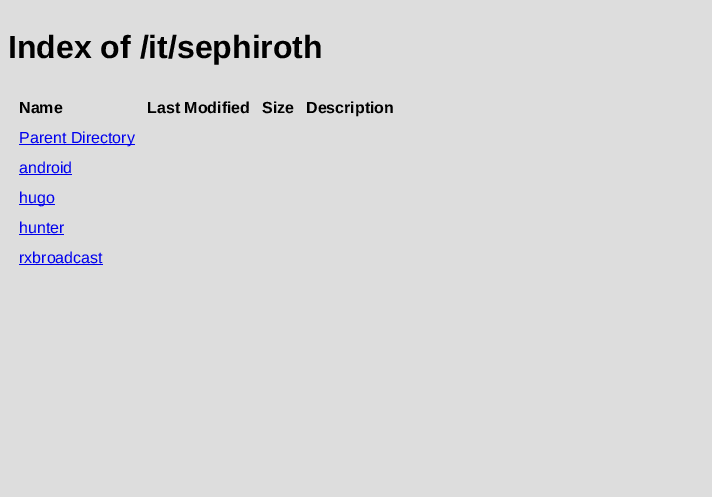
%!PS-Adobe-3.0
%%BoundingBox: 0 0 712 497
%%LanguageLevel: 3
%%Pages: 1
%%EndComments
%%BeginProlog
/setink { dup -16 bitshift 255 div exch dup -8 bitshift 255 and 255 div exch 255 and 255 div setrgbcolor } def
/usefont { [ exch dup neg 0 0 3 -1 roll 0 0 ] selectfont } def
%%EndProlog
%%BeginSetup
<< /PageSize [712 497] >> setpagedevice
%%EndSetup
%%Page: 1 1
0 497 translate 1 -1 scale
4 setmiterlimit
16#DDDDDD setink
0 0 712 497 rectfill
/LiberationSans-Bold 32 usefont
16#000000 setink
8 58 moveto (Index of /it/sephiroth) show
/LiberationSans-Bold 16 usefont
[
    [(Name) 19 113]
    [(Last Modified) 147 113]
    [(Size) 262 113]
    [(Description) 306 113]
] { aload pop moveto show } forall
16#0000EE setink
19 144 116 1 rectfill
/LiberationSans-Regular 16 usefont
19 143 moveto (Parent Directory) show
19 173 moveto (android) show
19 174 53 1 rectfill
19 204 36 1 rectfill
19 203 moveto (hugo) show
19 233 moveto (hunter) show
19 234 45 1 rectfill
19 263 moveto (rxbroadcast) show
19 264 84 1 rectfill
showpage
%%EOF
